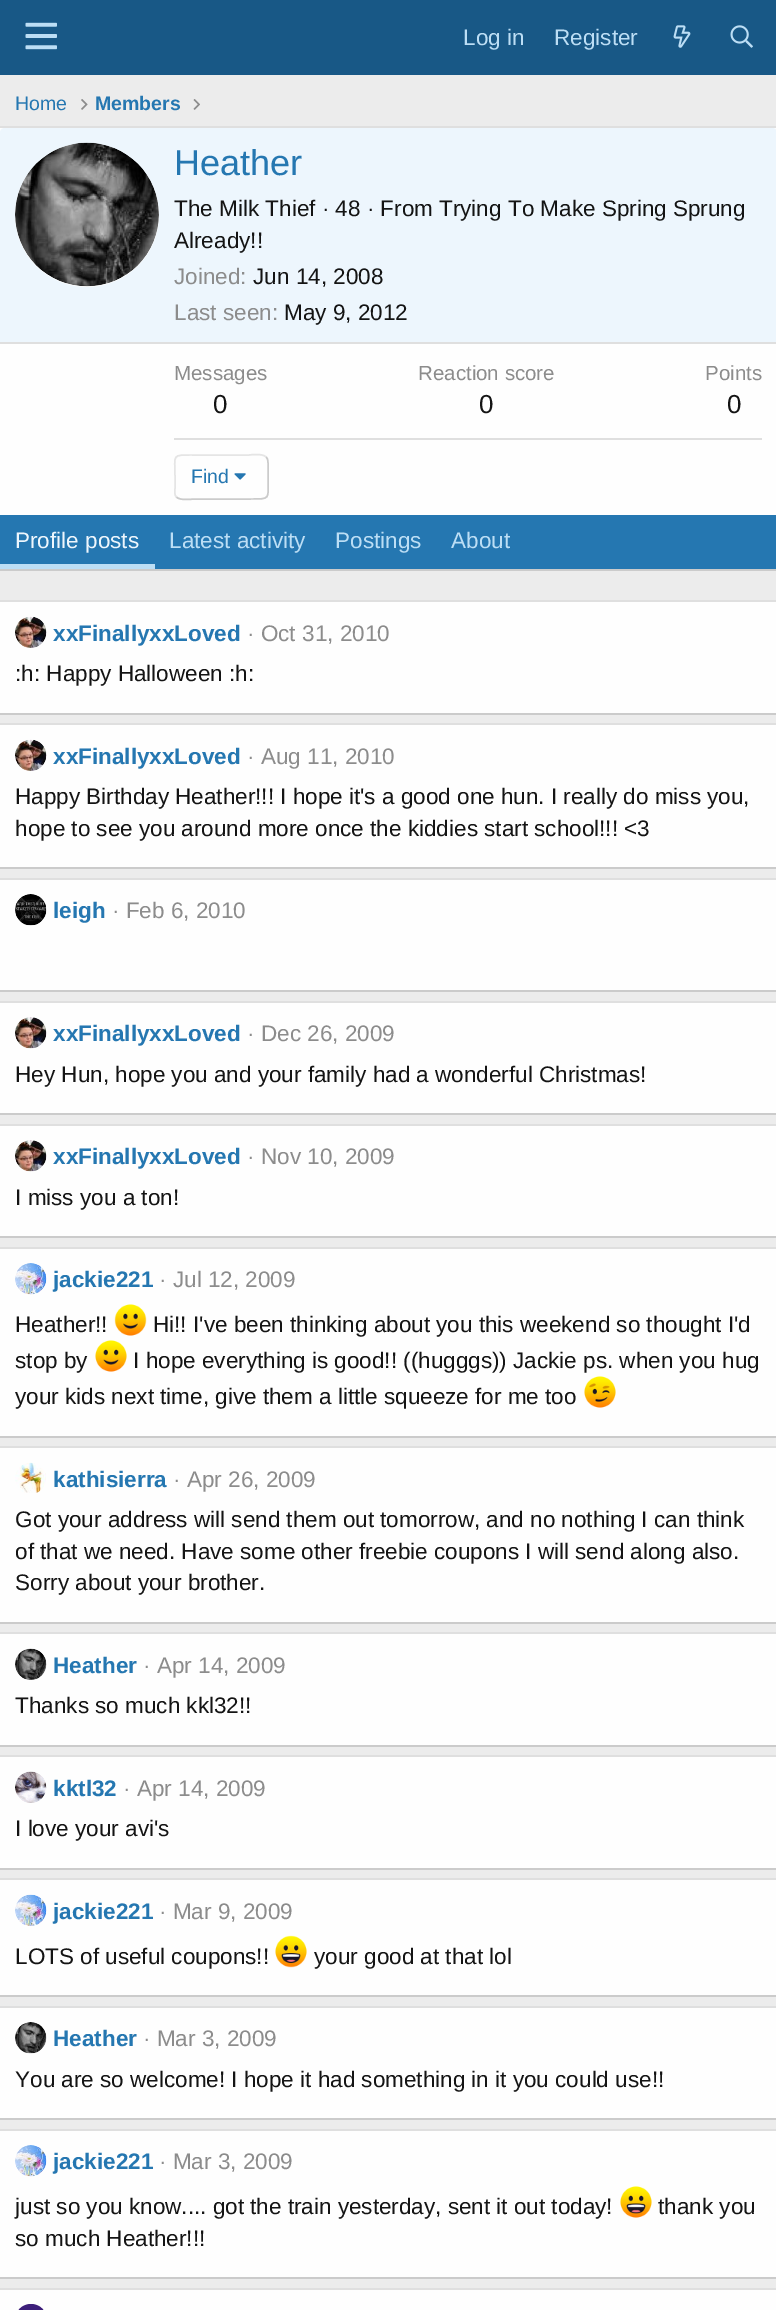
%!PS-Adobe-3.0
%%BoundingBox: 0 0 776 2310
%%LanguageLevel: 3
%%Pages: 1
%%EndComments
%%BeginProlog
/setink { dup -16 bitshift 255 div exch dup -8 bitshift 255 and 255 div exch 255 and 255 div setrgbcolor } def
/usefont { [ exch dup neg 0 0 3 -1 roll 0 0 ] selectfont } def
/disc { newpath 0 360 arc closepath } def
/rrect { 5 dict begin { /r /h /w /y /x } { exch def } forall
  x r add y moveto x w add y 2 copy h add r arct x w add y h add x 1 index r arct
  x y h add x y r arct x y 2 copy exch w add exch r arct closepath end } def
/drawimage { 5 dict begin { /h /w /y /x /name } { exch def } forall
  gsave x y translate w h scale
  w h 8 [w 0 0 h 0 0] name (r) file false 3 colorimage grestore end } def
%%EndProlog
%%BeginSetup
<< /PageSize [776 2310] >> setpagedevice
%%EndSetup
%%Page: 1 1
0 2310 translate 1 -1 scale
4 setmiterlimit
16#ECECEC setink
0 0 776 2310 rectfill
16#185886 setink
0 0 776 75 rectfill
(img1.raw) 25 22 32 28 drawimage
/LiberationSans-Regular 22.5 usefont
16#BCDEF5 setink
463 45 moveto (Log in) show
554 45 moveto (Register) show
(img2.raw) 673 25 18 23 drawimage
(img3.raw) 730 25 23 23 drawimage
/LiberationSans-Regular 19.5 usefont
16#2577B1 setink
15 110 moveto (Home) show
(img4.raw) 81 99 7 11 drawimage
/LiberationSans-Bold 19.5 usefont
95 110 moveto (Members) show
(img5.raw) 193 99 7 11 drawimage
[
    [0 128 776 387 16#FEFEFE]
    [0 126 776 2 16#DFDFDF]
    [0 569 776 2 16#CBCBCB]
] { aload pop setink rectfill } forall
16#EDF6FD setink
5 128 moveto 772 128 lineto 775 128 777 130 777 133 curveto 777 344 lineto 0 344 lineto 0 133 lineto 0 130 2 128 5 128 curveto closepath fill
16#DFDFDF setink
0 342 776 2 rectfill
16#FEFEFE setink
87 215 72 disc fill
(img6.raw) 15 142 144 145 drawimage
/LiberationSans-Regular 36 usefont
16#2577B1 setink
174 175 moveto (Heather) show
/LiberationSans-Regular 22.5 usefont
16#141414 setink
174 216 moveto (The Milk Thief · 48 · From Trying To Make Spring Sprung) show
174 248 moveto (Already!!) show
16#8C8C8C setink
174 284 moveto (Joined:) show
16#141414 setink
253 284 moveto (Jun 14, 2008) show
16#8C8C8C setink
174 320 moveto (Last seen:) show
16#141414 setink
284 320 moveto (May 9, 2012) show
/LiberationSans-Regular 20.5 usefont
16#8C8C8C setink
174 380 moveto (Messages) show
/LiberationSans-Regular 26 usefont
16#141414 setink
213 413 moveto (0) show
/LiberationSans-Regular 20.5 usefont
16#8C8C8C setink
418 380 moveto (Reaction score) show
/LiberationSans-Regular 26 usefont
16#141414 setink
479 413 moveto (0) show
/LiberationSans-Regular 20.5 usefont
16#8C8C8C setink
705 380 moveto (Points) show
/LiberationSans-Regular 26 usefont
16#141414 setink
727 413 moveto (0) show
16#DFDFDF setink
174 438 588 2 rectfill
16#CBCBCB setink
1.5 setlinewidth
266 457 moveto 268.5 459 268 463 268 466 curveto 268 477 lineto 268 500 271.5 499 249 499 curveto 194 499 lineto 193 499 180 501 176.5 497 curveto stroke
16#E5E5E5 setink
176.5 497 moveto 174 495 175 491 175 488 curveto 175 477 lineto 175 454 171 455 194 455 curveto 249 455 lineto 249.5 455 262.5 453 266 457 curveto stroke
/LiberationSans-Regular 19.5 usefont
16#2577B1 setink
191 483 moveto (Find) show
(img7.raw) 234 473 12 7 drawimage
0 515 776 54 rectfill
16#BCDEF5 setink
0 564 155 5 rectfill
/LiberationSans-Regular 22.5 usefont
16#EDF6FD setink
15 548 moveto (Profile posts) show
16#BCDEF5 setink
[
    [(Latest activity) 169 548]
    [(Postings) 335 548]
    [(About) 451 548]
] { aload pop moveto show } forall
[
    [0 602 776 111 16#FEFEFE]
    [0 600 776 2 16#DFDFDF]
    [0 713 776 2 16#CBCBCB]
] { aload pop setink rectfill } forall
(img8.raw) 15 616 32 32 drawimage
/LiberationSans-Bold 22.5 usefont
16#2577B1 setink
53 641 moveto (xxFinallyxxLoved) show
/LiberationSans-Regular 22.5 usefont
16#8C8C8C setink
247 641 moveto (· Oct 31, 2010) show
16#141414 setink
15 681 moveto (:h: Happy Halloween :h:) show
[
    [0 725 776 142 16#FEFEFE]
    [0 723 776 2 16#DFDFDF]
    [0 867 776 2 16#CBCBCB]
] { aload pop setink rectfill } forall
(img9.raw) 15 739 32 32 drawimage
/LiberationSans-Bold 22.5 usefont
16#2577B1 setink
53 764 moveto (xxFinallyxxLoved) show
/LiberationSans-Regular 22.5 usefont
16#8C8C8C setink
247 764 moveto (· Aug 11, 2010) show
16#141414 setink
15 804 moveto (Happy Birthday Heather!!! I hope it's a good one hun. I really do miss you,) show
15 836 moveto (hope to see you around more once the kiddies start school!!! <3) show
[
    [0 880 776 110 16#FEFEFE]
    [0 878 776 2 16#DFDFDF]
    [0 990 776 2 16#CBCBCB]
] { aload pop setink rectfill } forall
(img10.raw) 15 894 32 32 drawimage
/LiberationSans-Bold 22.5 usefont
16#2577B1 setink
53 918 moveto (leigh) show
/LiberationSans-Regular 22.5 usefont
16#8C8C8C setink
112 918 moveto (· Feb 6, 2010) show
[
    [0 1003 776 110 16#FEFEFE]
    [0 1001 776 2 16#DFDFDF]
    [0 1113 776 2 16#CBCBCB]
] { aload pop setink rectfill } forall
(img11.raw) 15 1017 32 32 drawimage
/LiberationSans-Bold 22.5 usefont
16#2577B1 setink
53 1041 moveto (xxFinallyxxLoved) show
/LiberationSans-Regular 22.5 usefont
16#8C8C8C setink
247 1041 moveto (· Dec 26, 2009) show
16#141414 setink
15 1082 moveto (Hey Hun, hope you and your family had a wonderful Christmas!) show
[
    [0 1126 776 110 16#FEFEFE]
    [0 1124 776 2 16#DFDFDF]
    [0 1236 776 2 16#CBCBCB]
] { aload pop setink rectfill } forall
(img11.raw) 15 1140 32 32 drawimage
/LiberationSans-Bold 22.5 usefont
16#2577B1 setink
53 1164 moveto (xxFinallyxxLoved) show
/LiberationSans-Regular 22.5 usefont
16#8C8C8C setink
247 1164 moveto (· Nov 10, 2009) show
16#141414 setink
15 1205 moveto (I miss you a ton!) show
[
    [0 1249 776 187 16#FEFEFE]
    [0 1247 776 2 16#DFDFDF]
    [0 1436 776 2 16#CBCBCB]
] { aload pop setink rectfill } forall
(img12.raw) 15 1263 32 32 drawimage
/LiberationSans-Bold 22.5 usefont
16#2577B1 setink
53 1287 moveto (jackie221) show
/LiberationSans-Regular 22.5 usefont
16#8C8C8C setink
159 1287 moveto (· Jul 12, 2009) show
16#141414 setink
15 1332 moveto (Heather!!) show
(img13.raw) 114 1304 33 32 drawimage
153 1332 moveto (Hi!! I've been thinking about you this weekend so thought I'd) show
15 1368 moveto (stop by) show
(img14.raw) 95 1340 32 32 drawimage
133 1368 moveto (I hope everything is good!! \(\(hugggs\)\) Jackie ps. when you hug) show
15 1404 moveto (your kids next time, give them a little squeeze for me too) show
(img15.raw) 584 1376 32 32 drawimage
[
    [0 1448 776 174 16#FEFEFE]
    [0 1446 776 2 16#DFDFDF]
    [0 1622 776 2 16#CBCBCB]
] { aload pop setink rectfill } forall
(img16.raw) 15 1462 31 31 drawimage
/LiberationSans-Bold 22.5 usefont
16#2577B1 setink
53 1487 moveto (kathisierra) show
/LiberationSans-Regular 22.5 usefont
16#8C8C8C setink
173 1487 moveto (· Apr 26, 2009) show
16#141414 setink
[
    [(Got your address will send them out tomorrow, and no nothing I can think) 15 1527]
    [(of that we need. Have some other freebie coupons I will send along also.) 15 1559]
    [(Sorry about your brother.) 15 1590]
] { aload pop moveto show } forall
[
    [0 1634 776 111 16#FEFEFE]
    [0 1632 776 2 16#DFDFDF]
    [0 1745 776 2 16#CBCBCB]
] { aload pop setink rectfill } forall
(img17.raw) 15 1648 32 32 drawimage
/LiberationSans-Bold 22.5 usefont
16#2577B1 setink
53 1673 moveto (Heather) show
/LiberationSans-Regular 22.5 usefont
16#8C8C8C setink
143 1673 moveto (· Apr 14, 2009) show
16#141414 setink
15 1713 moveto (Thanks so much kkl32!!) show
[
    [0 1757 776 111 16#FEFEFE]
    [0 1755 776 2 16#DFDFDF]
    [0 1868 776 2 16#CBCBCB]
] { aload pop setink rectfill } forall
(img18.raw) 15 1771 32 32 drawimage
/LiberationSans-Bold 22.5 usefont
16#2577B1 setink
53 1796 moveto (kktl32) show
/LiberationSans-Regular 22.5 usefont
16#8C8C8C setink
123 1796 moveto (· Apr 14, 2009) show
16#141414 setink
15 1836 moveto (I love your avi's) show
[
    [0 1880 776 115 16#FEFEFE]
    [0 1878 776 2 16#DFDFDF]
    [0 1995 776 2 16#CBCBCB]
] { aload pop setink rectfill } forall
(img19.raw) 15 1894 32 32 drawimage
/LiberationSans-Bold 22.5 usefont
16#2577B1 setink
53 1919 moveto (jackie221) show
/LiberationSans-Regular 22.5 usefont
16#8C8C8C setink
159 1919 moveto (· Mar 9, 2009) show
16#141414 setink
15 1964 moveto (LOTS of useful coupons!!) show
(img20.raw) 275 1935 32 33 drawimage
314 1964 moveto (your good at that lol) show
[
    [0 2008 776 110 16#FEFEFE]
    [0 2006 776 2 16#DFDFDF]
    [0 2118 776 2 16#CBCBCB]
] { aload pop setink rectfill } forall
(img21.raw) 15 2022 32 32 drawimage
/LiberationSans-Bold 22.5 usefont
16#2577B1 setink
53 2046 moveto (Heather) show
/LiberationSans-Regular 22.5 usefont
16#8C8C8C setink
143 2046 moveto (· Mar 3, 2009) show
16#141414 setink
15 2087 moveto (You are so welcome! I hope it had something in it you could use!!) show
[
    [0 2131 776 146 16#FEFEFE]
    [0 2129 776 2 16#DFDFDF]
    [0 2277 776 2 16#CBCBCB]
] { aload pop setink rectfill } forall
(img22.raw) 15 2145 32 32 drawimage
/LiberationSans-Bold 22.5 usefont
16#2577B1 setink
53 2169 moveto (jackie221) show
/LiberationSans-Regular 22.5 usefont
16#8C8C8C setink
159 2169 moveto (· Mar 3, 2009) show
16#141414 setink
15 2214 moveto (just so you know.... got the train yesterday, sent it out today!) show
(img23.raw) 620 2186 32 32 drawimage
658 2214 moveto (thank you) show
15 2246 moveto (so much Heather!!!) show
16#FEFEFE setink
0 2290 776 20 rectfill
16#DFDFDF setink
0 2288 776 2 rectfill
16#3D1F7A setink
15 2304 32 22 16 rrect fill
showpage
%%EOF
